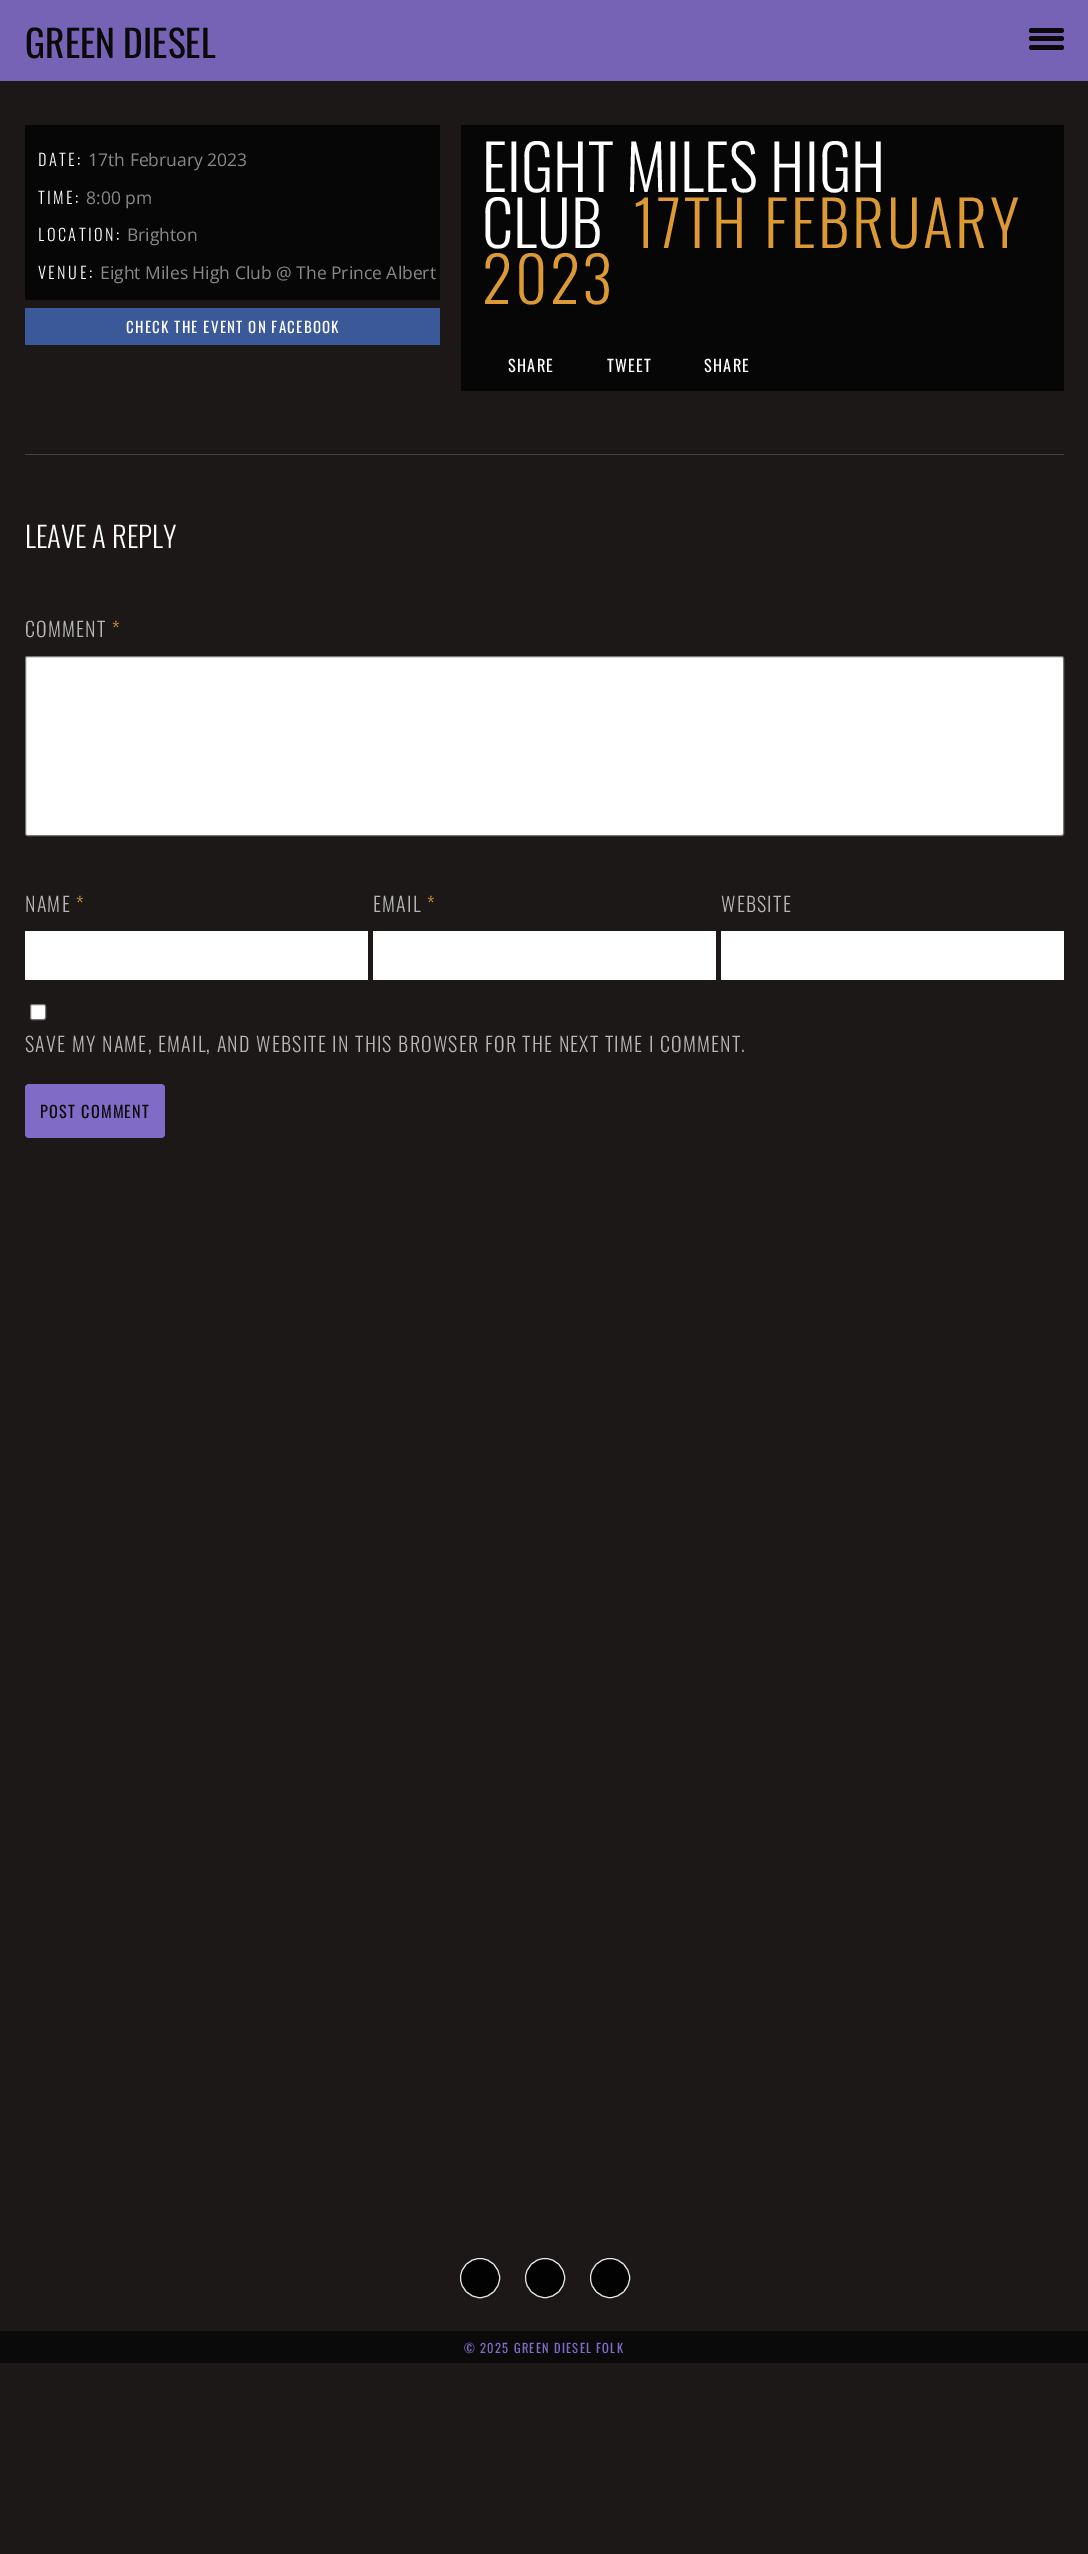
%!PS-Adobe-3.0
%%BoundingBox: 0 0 1088 2554
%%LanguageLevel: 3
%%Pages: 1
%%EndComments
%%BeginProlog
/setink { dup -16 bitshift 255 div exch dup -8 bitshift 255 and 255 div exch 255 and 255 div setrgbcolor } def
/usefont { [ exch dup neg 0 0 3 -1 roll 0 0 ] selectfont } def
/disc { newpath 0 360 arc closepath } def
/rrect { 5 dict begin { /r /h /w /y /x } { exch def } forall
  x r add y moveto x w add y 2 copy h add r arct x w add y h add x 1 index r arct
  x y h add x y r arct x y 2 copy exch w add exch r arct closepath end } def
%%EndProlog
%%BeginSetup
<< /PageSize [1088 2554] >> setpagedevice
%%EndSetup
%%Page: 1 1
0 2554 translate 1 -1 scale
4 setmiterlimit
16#1C1818 setink
0 0 1088 2554 rectfill
16#7663B5 setink
0 0 1088 81 rectfill
16#0A0A0A setink
1029 28 35 5 2.5 rrect fill
1029 36 35 5 2.5 rrect fill
1029 45 35 5 2.5 rrect fill
/Oswald-Regular 37.5 usefont
25 58 moveto (GREEN DIESEL) show
16#060606 setink
25 125 415 175 rectfill
/Oswald-Light 16.25 usefont
16#FFFFFF setink
38 166 moveto 2.5 0 (DATE:) ashow
/OpenSans-Regular 17.5 usefont
16#888888 setink
88 166 moveto (17th February 2023) show
/Oswald-Light 16.25 usefont
16#FFFFFF setink
38 204 moveto 2.5 0 (TIME:) ashow
/OpenSans-Regular 17.5 usefont
16#888888 setink
86 204 moveto (8:00 pm) show
/Oswald-Light 16.25 usefont
16#FFFFFF setink
38 241 moveto 2.5 0 (LOCATION:) ashow
/OpenSans-Regular 17.5 usefont
16#888888 setink
127 241 moveto (Brighton) show
/Oswald-Light 16.25 usefont
16#FFFFFF setink
38 279 moveto 2.5 0 (VENUE:) ashow
/OpenSans-Regular 17.5 usefont
16#888888 setink
100 279 moveto (Eight Miles High Club @ The Prince Albert) show
16#3B5998 setink
25 308 415 37 rectfill
/Oswald-Regular 15 usefont
16#FFFFFF setink
126 333 moveto 1.25 0 (CHECK THE EVENT ON FACEBOOK) ashow
16#060606 setink
461 125 603 266 rectfill
/Oswald-Light 62.5 usefont
16#FFFFFF setink
482 192 moveto (EIGHT MILES HIGH) show
482 248 moveto (CLUB) show
16#DD9933 setink
633 248 moveto 2.5 0 (17TH FEBRUARY) ashow
482 304 moveto 2.5 0 (2023) ashow
/Oswald-Regular 16.25 usefont
16#FFFFFF setink
508 372 moveto 1.25 0 (SHARE) ashow
607 372 moveto 1.25 0 (TWEET) ashow
704 372 moveto 1.25 0 (SHARE) ashow
16#434543 setink
25 454 1039 1 rectfill
/Oswald-Light 28.75 usefont
16#FFFFFF setink
25 548 moveto (LEAVE A REPLY) show
/Oswald-Light 20 usefont
16#B6B6B6 setink
25 637 moveto 1.25 0 (COMMENT) ashow
16#DD9933 setink
112 637 moveto 1.25 0 (*) ashow
16#FFFFFF setink
25.5 656.5 1038 179 2 rrect gsave fill grestore
16#767676 setink
stroke
16#B6B6B6 setink
25 912 moveto 1.25 0 (NAME) ashow
16#DD9933 setink
76 912 moveto 1.25 0 (*) ashow
16#FFFFFF setink
25 931 343 49 rectfill
16#B6B6B6 setink
373 912 moveto 1.25 0 (EMAIL) ashow
16#DD9933 setink
427 912 moveto 1.25 0 (*) ashow
16#FFFFFF setink
373 931 343 49 rectfill
16#B6B6B6 setink
721 912 moveto 1.25 0 (WEBSITE) ashow
16#FFFFFF setink
721 931 343 49 rectfill
30.5 1004.5 15 15 2 rrect gsave fill grestore
16#767676 setink
stroke
16#B6B6B6 setink
25 1052 moveto 1.25 0 (SAVE MY NAME, EMAIL, AND WEBSITE IN THIS BROWSER FOR THE NEXT TIME I COMMENT.) ashow
16#806BC6 setink
25 1084 140 54 4 rrect fill
/Oswald-Regular 16.25 usefont
16#0A0A0A setink
40 1118 moveto 1.25 0 (POST COMMENT) ashow
16#030202 setink
480 2278 19.5 disc gsave fill grestore
16#E8E8E8 setink
stroke
16#030202 setink
545 2278 19.5 disc gsave fill grestore
16#E8E8E8 setink
stroke
16#030202 setink
610 2278 19.5 disc gsave fill grestore
16#E8E8E8 setink
stroke
16#0A0A0A setink
0 2331 1088 32 rectfill
/Oswald-Regular 12.5 usefont
16#806BC6 setink
464 2353 moveto 1.25 0 (© 2025 GREEN DIESEL FOLK) ashow
showpage
%%EOF
